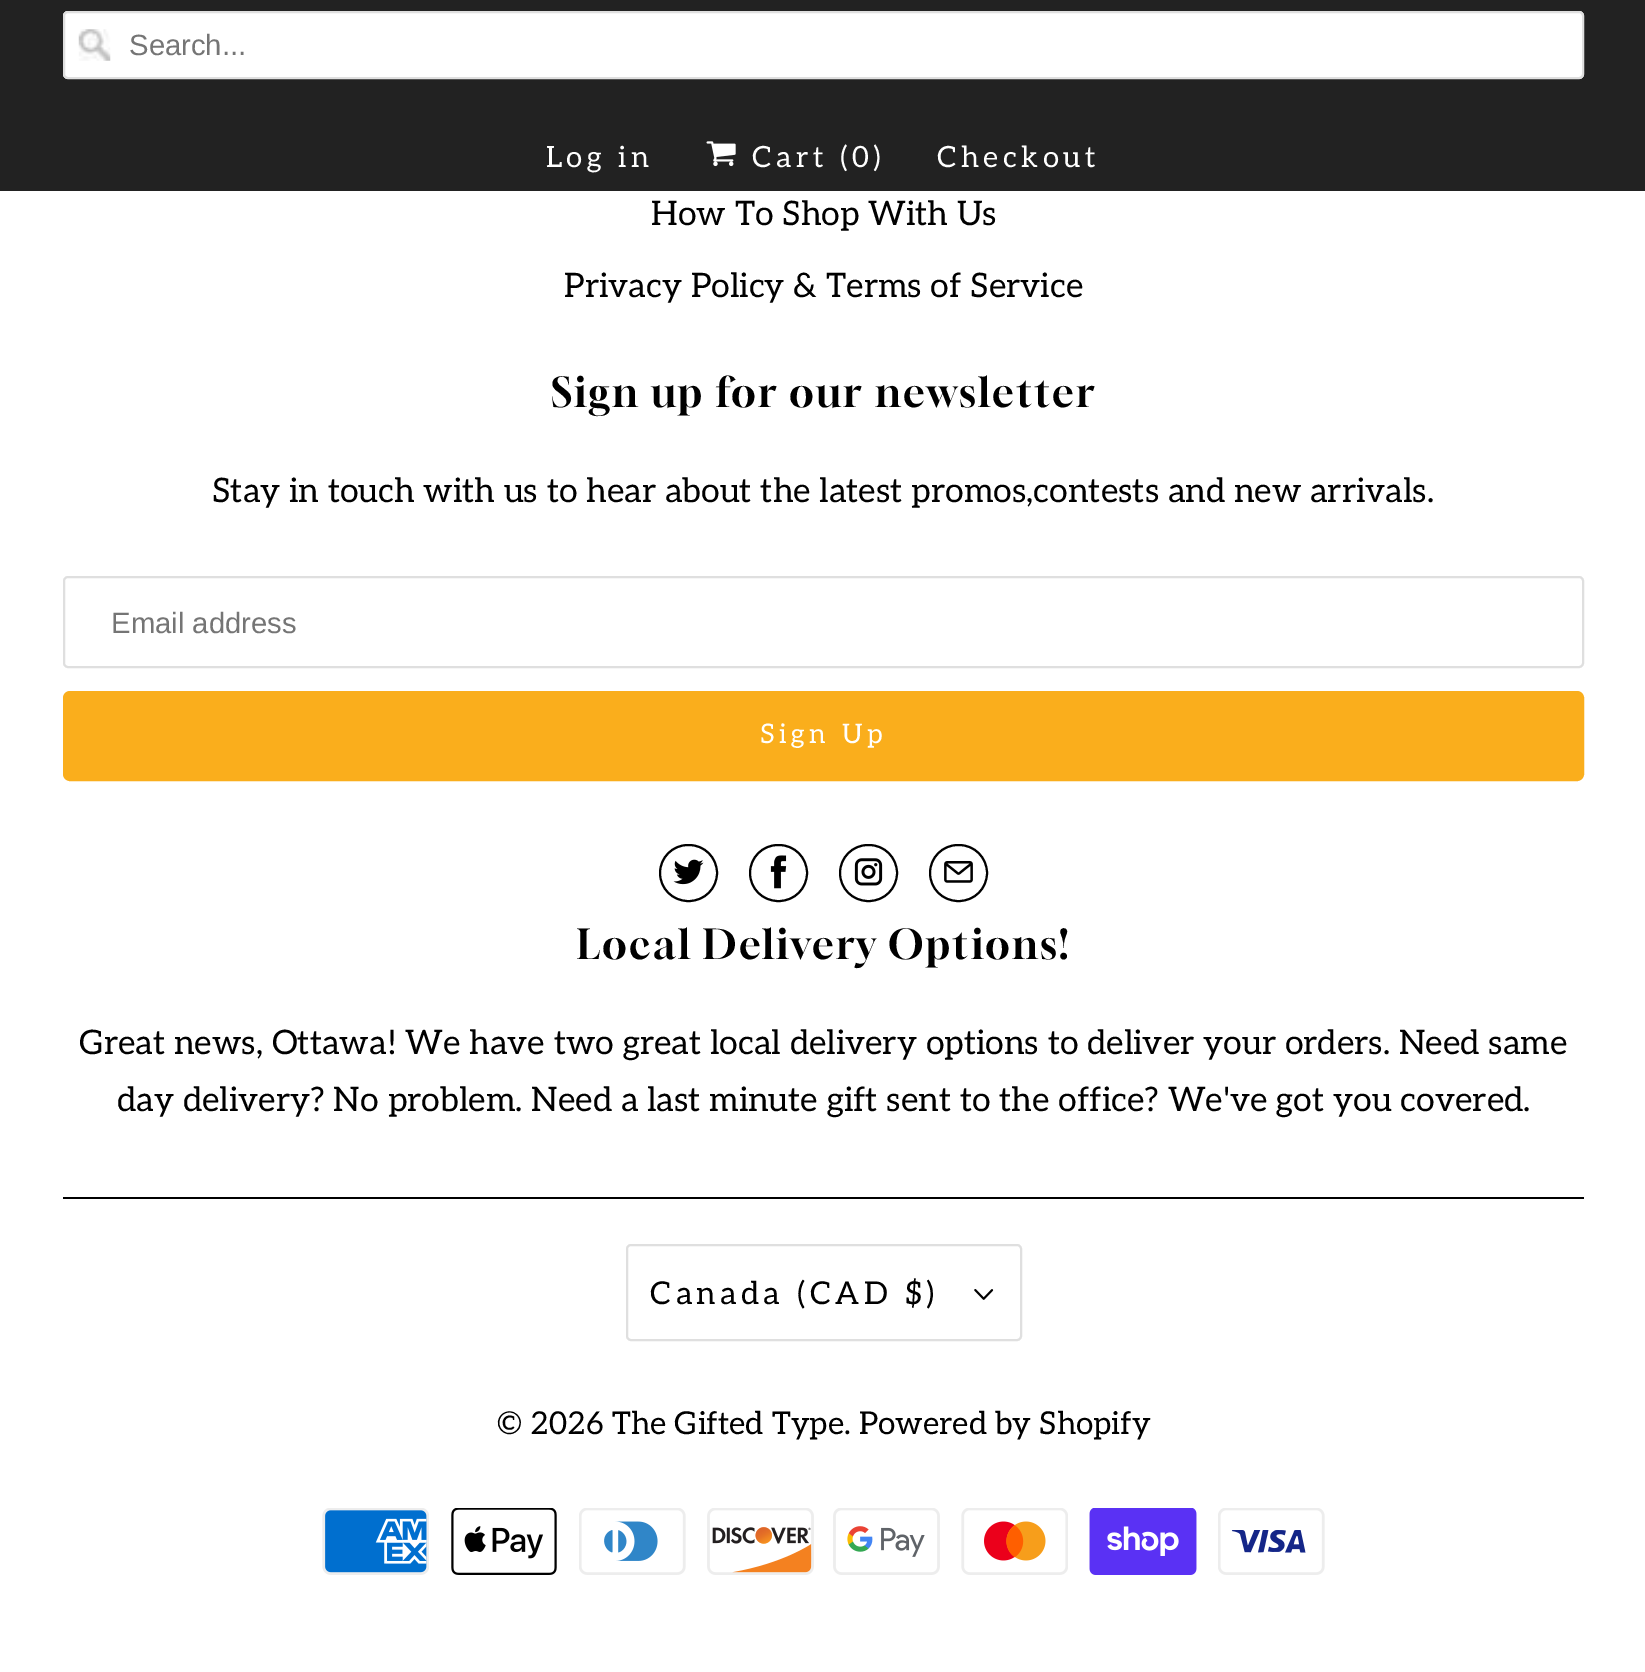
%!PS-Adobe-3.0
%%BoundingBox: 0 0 1645 1672
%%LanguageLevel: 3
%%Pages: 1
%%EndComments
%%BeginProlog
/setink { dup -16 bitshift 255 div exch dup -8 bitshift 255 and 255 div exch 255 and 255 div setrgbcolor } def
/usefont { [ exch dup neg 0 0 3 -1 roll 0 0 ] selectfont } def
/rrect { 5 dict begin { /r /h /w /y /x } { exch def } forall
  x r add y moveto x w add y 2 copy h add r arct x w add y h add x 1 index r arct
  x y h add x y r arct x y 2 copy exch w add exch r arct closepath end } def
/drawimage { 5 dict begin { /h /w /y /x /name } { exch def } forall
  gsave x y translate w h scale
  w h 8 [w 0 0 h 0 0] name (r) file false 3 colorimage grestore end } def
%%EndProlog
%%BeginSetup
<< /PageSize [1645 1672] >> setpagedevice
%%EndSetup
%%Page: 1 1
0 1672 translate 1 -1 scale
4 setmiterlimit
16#FFFFFF setink
0 0 1645 1672 rectfill
16#222222 setink
0 0 1645 191 rectfill
16#FFFFFF setink
63 11 1521 68 5 rrect fill
(img1.raw) 78 29 33 32 drawimage
16#DFDFDF setink
2 setlinewidth
64 12 1519 66 4 rrect stroke
/LiberationSans-Regular 29.25 usefont
16#757575 setink
129 55 moveto (Search...) show
/Aleo-Regular 29.25 usefont
16#FFFFFF setink
546 167 moveto 4.5 0 (Log in) ashow
(img2.raw) 706 141 30 26 drawimage
752 167 moveto 4.5 0 (Cart \(0\)) ashow
937 167 moveto 4.5 0 (Checkout) ashow
/Aleo-Regular 33.75 usefont
16#000000 setink
651 225 moveto (How To Shop With Us) show
564 297 moveto (Privacy Policy & Terms of Service) show
/Gloock-Regular 40.5 usefont
551 407 moveto 2.25 0 (Sign up for our newsletter) ashow
/Aleo-Regular 33.75 usefont
212 502 moveto (Stay in touch with us to hear about the latest promos,contests and new arrivals.) show
16#DFDFDF setink
64 577 1519 90 4 rrect stroke
/LiberationSans-Regular 29.25 usefont
16#757575 setink
111 633 moveto (Email address) show
16#FAAE1C setink
64 692 1519 88 6 rrect gsave fill grestore
stroke
/Aleo-Regular 27 usefont
16#FFFFFF setink
760 743 moveto 4.5 0 (Sign Up) ashow
16#000000 setink
660 845 57 56 28 rrect stroke
(img3.raw) 673 859 31 26 drawimage
750 845 57 56 28 rrect stroke
(img4.raw) 770 855 17 34 drawimage
840 845 57 56 28 rrect stroke
(img5.raw) 854 858 29 28 drawimage
930 845 57 56 28 rrect stroke
(img6.raw) 944 861 29 22 drawimage
/Gloock-Regular 40.5 usefont
577 959 moveto 2.25 0 (Local Delivery Options!) ashow
/Aleo-Regular 33.75 usefont
79 1054 moveto (Great news, Ottawa! We have two great local delivery options to deliver your orders. Need same) show
117 1111 moveto (day delivery? No problem. Need a last minute gift sent to the office? We've got you covered.) show
63 1197 1521 2 rectfill
16#DFDFDF setink
627 1245 394 95 4 rrect stroke
/Aleo-Regular 31.5 usefont
16#000000 setink
650 1304 moveto 4.5 0 (Canada \(CAD $\)) ashow
(img7.raw) 974 1289 20 11 drawimage
497 1434 moveto (© 2026 The Gifted Type. Powered by Shopify) show
(img8.raw) 322 1508 107 67 drawimage
(img9.raw) 451 1508 106 67 drawimage
(img10.raw) 579 1508 107 67 drawimage
(img11.raw) 707 1508 107 67 drawimage
(img12.raw) 833 1508 107 67 drawimage
(img13.raw) 961 1508 107 67 drawimage
(img14.raw) 1089 1508 108 67 drawimage
(img15.raw) 1218 1508 107 67 drawimage
showpage
%%EOF
